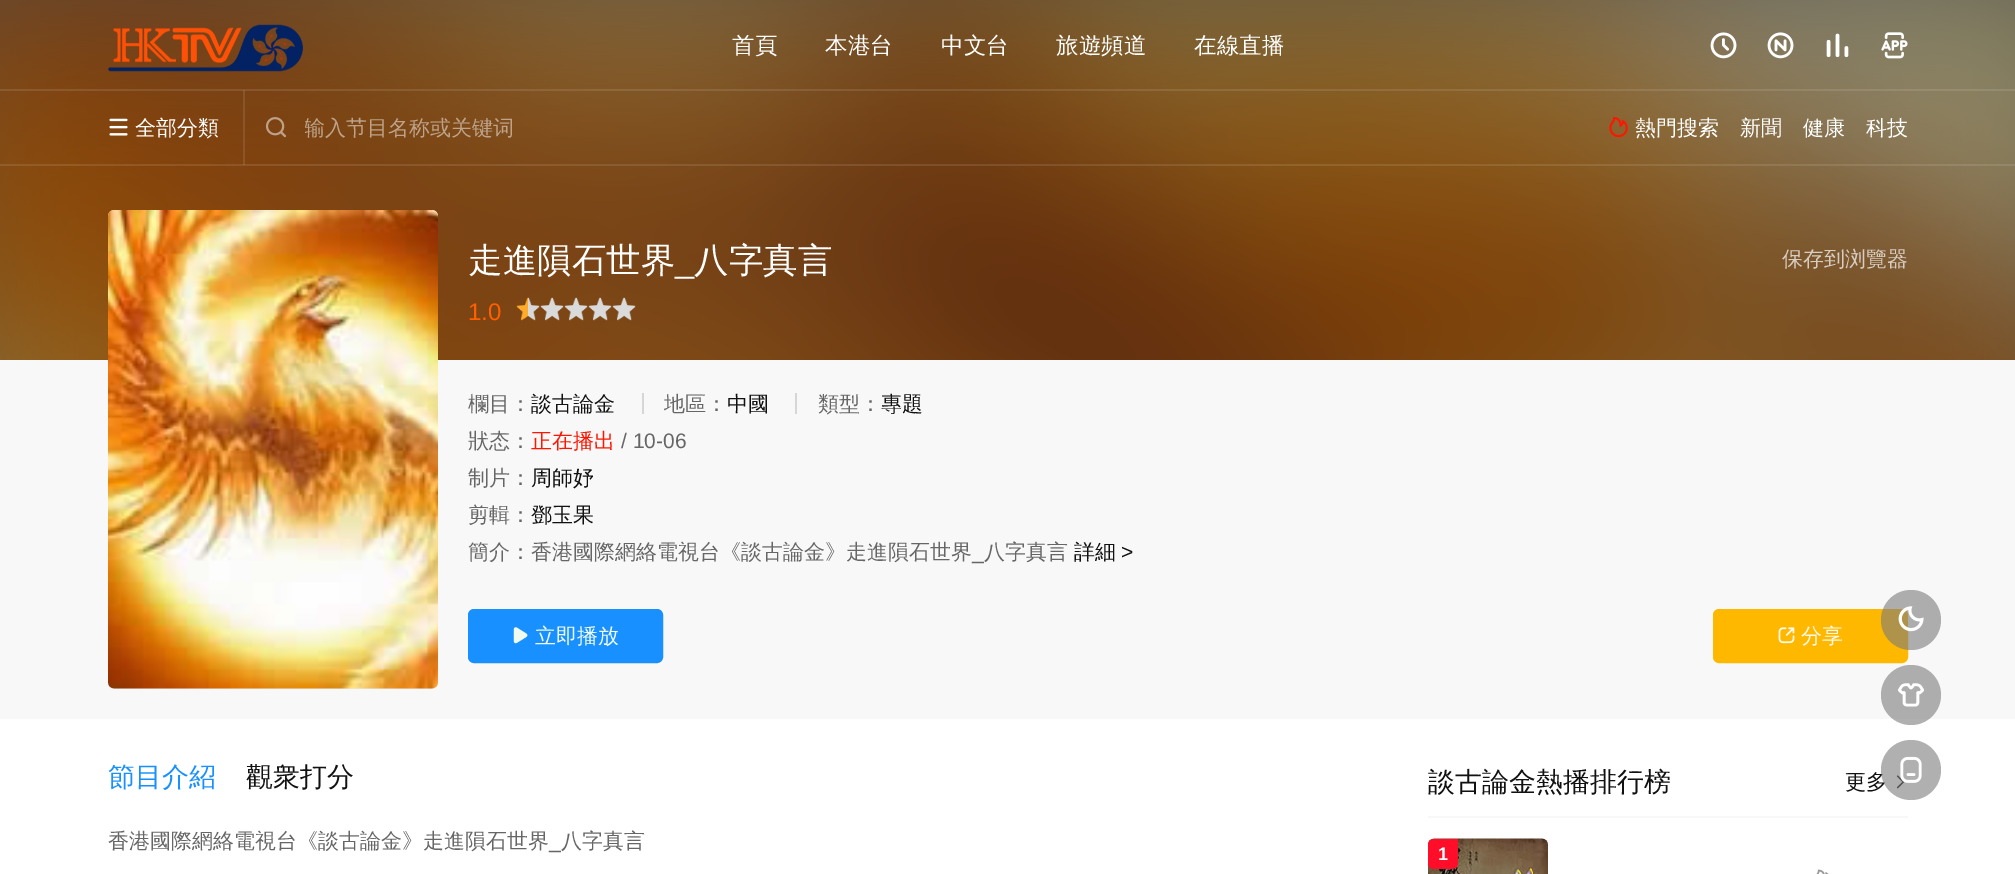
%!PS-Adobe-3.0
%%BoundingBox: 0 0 2015 874
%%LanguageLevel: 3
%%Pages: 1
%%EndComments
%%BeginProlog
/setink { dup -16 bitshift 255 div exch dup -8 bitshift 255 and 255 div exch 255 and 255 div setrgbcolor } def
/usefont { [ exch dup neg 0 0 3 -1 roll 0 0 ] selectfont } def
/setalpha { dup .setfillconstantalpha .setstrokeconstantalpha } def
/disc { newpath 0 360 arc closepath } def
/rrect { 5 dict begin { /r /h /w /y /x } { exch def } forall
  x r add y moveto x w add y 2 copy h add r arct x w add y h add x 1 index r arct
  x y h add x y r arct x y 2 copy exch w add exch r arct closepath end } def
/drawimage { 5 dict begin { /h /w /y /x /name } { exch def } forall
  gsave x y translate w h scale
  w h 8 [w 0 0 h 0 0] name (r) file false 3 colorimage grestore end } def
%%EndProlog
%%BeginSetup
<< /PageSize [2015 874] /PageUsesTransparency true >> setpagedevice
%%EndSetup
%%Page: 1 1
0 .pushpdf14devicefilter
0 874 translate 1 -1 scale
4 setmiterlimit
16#FFFFFF setink
0 0 2015 874 rectfill
16#4D4D4D setink
0 0 2015 360 rectfill
(img9.raw) 0 0 2015 360 drawimage
(img1.raw) 108 24 195 48 drawimage
/WenQuanYiZenHei-Medium 22.5 usefont
16#FFFFFF setink
[
    [(首頁) 732 53]
    [(本港台) 825 53]
    [(中文台) 941 53]
    [(旅遊頻道) 1056 53]
    [(在線直播) 1194 53]
] { aload pop moveto show } forall
(img2.raw) 1710 32 27 27 drawimage
(img3.raw) 1767 32 27 27 drawimage
(img4.raw) 1826 33 23 24 drawimage
(img5.raw) 1881 32 27 27 drawimage
0.1 setalpha
243 90 2 75 rectfill
0 89 2015 2 rectfill
1 setalpha
(img6.raw) 109 118 19 18 drawimage
/WenQuanYiZenHei-Medium 21 usefont
135 135 moveto (全部分類) show
(img7.raw) 265 117 21 21 drawimage
gsave
305 116 562 27 rectclip
16#BEA38B setink
304 135 moveto (输入节目名称或关键词) show
grestore
(img8.raw) 1609 117 19 21 drawimage
[
    [(熱門搜索) 1635 135]
    [(新聞) 1740 135]
    [(健康) 1803 135]
    [(科技) 1866 135]
] { aload pop moveto show } forall
0.1 setalpha
0 164 2015 2 rectfill
1 setalpha
16#F8F8F8 setink
0 360 2015 359 rectfill
16#EBEBEB setink
108 210 330 479 6 rrect fill
(img10.raw) 108 210 330 479 drawimage
/WenQuanYiZenHei-Medium 34.5 usefont
16#FFFFFF setink
468 272 moveto (走進隕石世界) show
/LiberationSans-Regular 34.5 usefont
675 272 moveto (_) show
/WenQuanYiZenHei-Medium 34.5 usefont
694 272 moveto (八字真言) show
/WenQuanYiZenHei-Medium 21 usefont
16#D8CDC1 setink
1782 266 moveto (保存到浏覽器) show
/LiberationSans-Regular 24 usefont
16#FF5F00 setink
468 320 moveto (1.0) show
(img11.raw) 516 297 24 24 drawimage
(img12.raw) 540 297 24 24 drawimage
(img13.raw) 564 297 24 24 drawimage
(img14.raw) 588 297 24 24 drawimage
(img15.raw) 612 297 24 24 drawimage
/WenQuanYiZenHei-Medium 21 usefont
16#666666 setink
468 411 moveto (欄目：) show
16#111111 setink
531 411 moveto (談古論金) show
16#D6D6D6 setink
642 393 2 21 rectfill
16#666666 setink
664 411 moveto (地區：) show
16#111111 setink
727 411 moveto (中國) show
16#D6D6D6 setink
795 393 2 21 rectfill
16#666666 setink
818 411 moveto (類型：) show
16#111111 setink
881 411 moveto (專題) show
16#666666 setink
468 448 moveto (狀态：) show
16#FF1500 setink
531 448 moveto (正在播出) show
/LiberationSans-Regular 21 usefont
16#666666 setink
621 448 moveto (/ 10-06) show
/WenQuanYiZenHei-Medium 21 usefont
468 485 moveto (制片：) show
16#111111 setink
531 485 moveto (周師妤) show
16#666666 setink
468 522 moveto (剪輯：) show
16#111111 setink
531 522 moveto (鄧玉果) show
16#666666 setink
468 559 moveto (簡介：香港國際網絡電視台《談古論金》走進隕石世界) show
/LiberationSans-Regular 21 usefont
972 559 moveto (_) show
/WenQuanYiZenHei-Medium 21 usefont
984 559 moveto (八字真言) show
16#111111 setink
1074 559 moveto (詳細) show
/LiberationSans-Regular 21 usefont
1121 559 moveto (>) show
16#1890FF setink
469 610 193 52 5 rrect gsave fill grestore
2 setlinewidth
stroke
(img16.raw) 513 627 15 17 drawimage
/WenQuanYiZenHei-Medium 21 usefont
16#EFFAF0 setink
535 643 moveto (立即播放) show
16#FFB800 setink
1714 610 193 52 5 rrect gsave fill grestore
stroke
(img17.raw) 1778 627 17 17 drawimage
16#FFF9E9 setink
1801 643 moveto (分享) show
0.6 setalpha
16#7B7B7B setink
1911 620 30 disc fill
1 setalpha
(img18.raw) 1898 606 26 26 drawimage
0.6 setalpha
1911 695 30 disc fill
1 setalpha
(img19.raw) 1898 683 26 24 drawimage
16#111111 setink
1845 789 moveto (更多) show
(img21.raw) 1896 775 9 14 drawimage
0.6 setalpha
16#7B7B7B setink
1911 770 30 disc fill
1 setalpha
(img20.raw) 1900 756 22 27 drawimage
/WenQuanYiZenHei-Medium 27 usefont
16#1890FF setink
108 786 moveto (節目介紹) show
gsave
246 764 138 30 rectclip
16#111111 setink
246 786 moveto (觀衆打分) show
grestore
/WenQuanYiZenHei-Medium 21 usefont
16#666666 setink
108 848 moveto (香港國際網絡電視台《談古論金》走進隕石世界) show
/LiberationSans-Regular 21 usefont
549 848 moveto (_) show
/WenQuanYiZenHei-Medium 21 usefont
561 848 moveto (八字真言) show
/WenQuanYiZenHei-Medium 27 usefont
16#111111 setink
1428 791 moveto (談古論金熱播排行榜) show
16#F8F8F8 setink
1428 816 480 2 rectfill
(img22.raw) 1428 838 120 36 drawimage
16#FF0D29 setink
1434 839 moveto 1458 839 lineto 1458 863 lineto 1458 866.5 1455.5 869 1452 869 curveto 1434 869 lineto 1430.5 869 1428 866.5 1428 863 curveto 1428 845 lineto 1428 841.5 1430.5 839 1434 839 curveto closepath fill
/LiberationSans-Bold 18 usefont
16#FFFFFF setink
1438 860 moveto (1) show
(img23.raw) 1816 869 13 5 drawimage
.poppdf14devicefilter showpage
%%EOF
